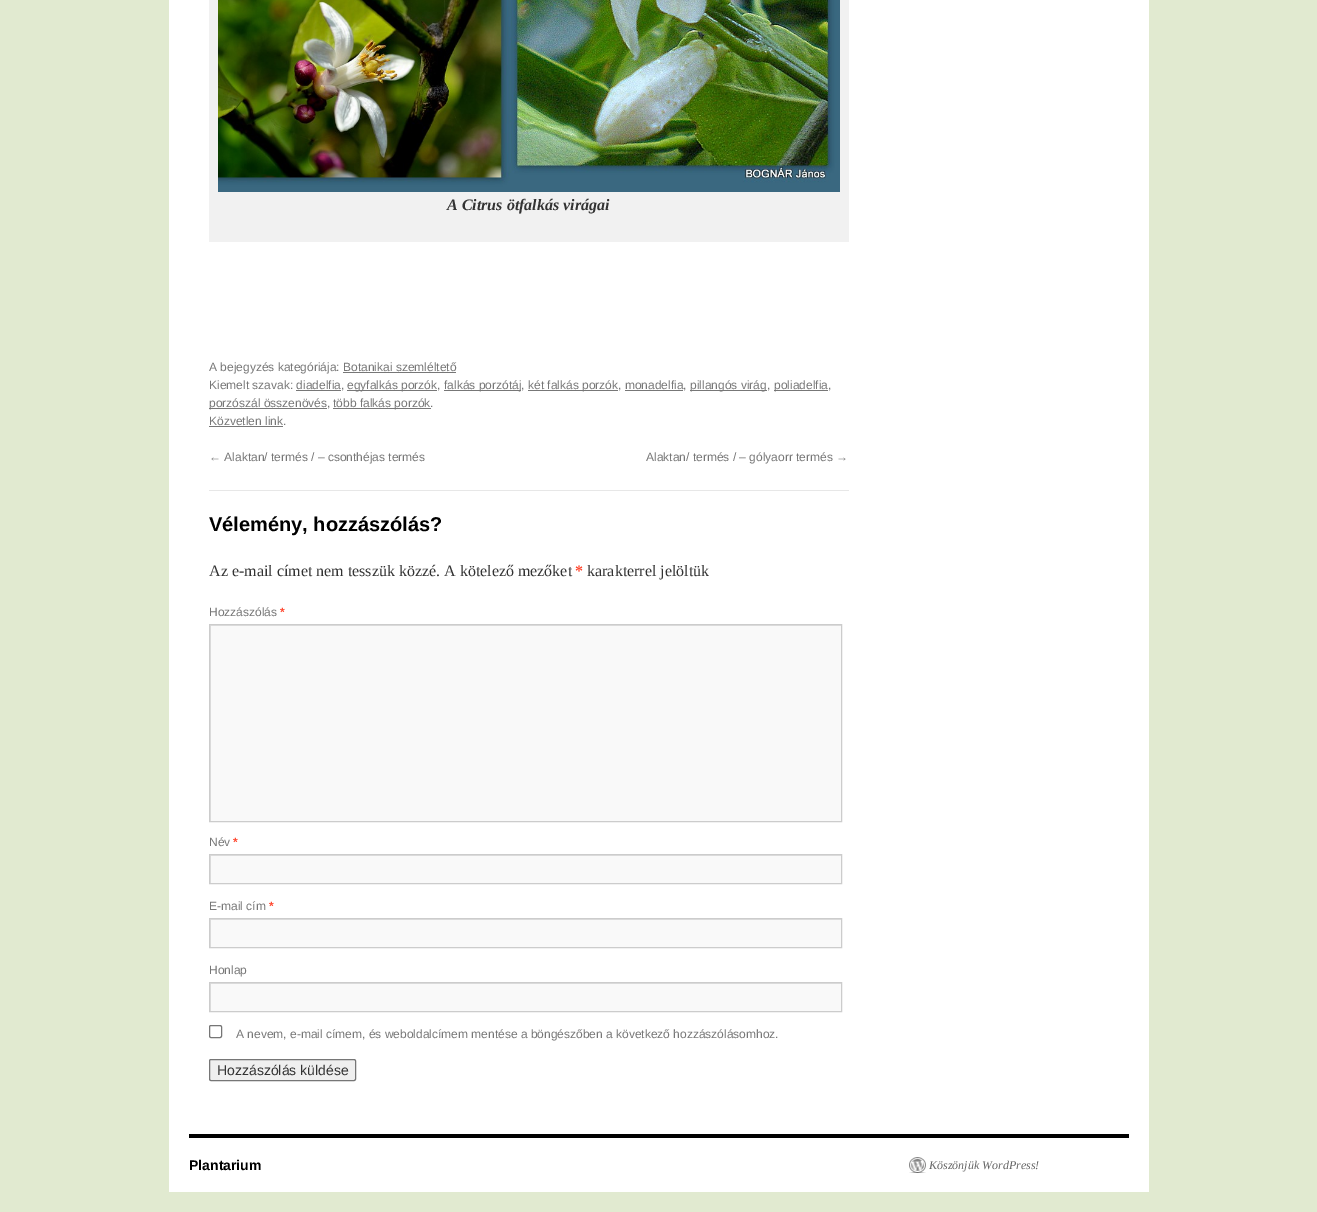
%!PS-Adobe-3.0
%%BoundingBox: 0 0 1317 1212
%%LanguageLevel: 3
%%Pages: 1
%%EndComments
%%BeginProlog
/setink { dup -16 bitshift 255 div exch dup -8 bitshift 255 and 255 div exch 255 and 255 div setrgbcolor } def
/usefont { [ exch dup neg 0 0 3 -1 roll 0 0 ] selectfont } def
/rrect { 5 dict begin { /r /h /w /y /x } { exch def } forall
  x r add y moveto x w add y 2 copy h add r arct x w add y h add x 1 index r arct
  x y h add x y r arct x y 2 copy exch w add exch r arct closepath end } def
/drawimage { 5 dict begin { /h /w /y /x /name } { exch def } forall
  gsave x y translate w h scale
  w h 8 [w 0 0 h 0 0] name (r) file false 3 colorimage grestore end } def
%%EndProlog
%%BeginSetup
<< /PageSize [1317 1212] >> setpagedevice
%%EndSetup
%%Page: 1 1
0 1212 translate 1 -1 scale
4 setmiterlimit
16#E1EAD0 setink
0 0 1317 1212 rectfill
16#FFFFFF setink
169 0 980 1192 rectfill
16#F1F1F1 setink
209 0 640 242 rectfill
(img1.raw) 218 0 622 192 drawimage
/LiberationSerif-BoldItalic 16 usefont
16#333333 setink
447 210 moveto (A Citrus ötfalkás virágai) show
/LiberationSans-Regular 12 usefont
16#777777 setink
209 371 moveto (A bejegyzés kategóriája: Botanikai szemléltető) show
343 372 113 1 rectfill
209 389 moveto (Kiemelt szavak: diadelfia,) show
347 390 90 1 rectfill
347 389 moveto (egyfalkás porzók,) show
444 390 77 1 rectfill
444 389 moveto (falkás porzótáj,) show
528 390 90 1 rectfill
528 389 moveto (két falkás porzók, monadelfia,) show
690 390 77 1 rectfill
690 389 moveto (pillangós virág,) show
774 390 54 1 rectfill
774 389 moveto (poliadelfia,) show
[
    [296 390 45 1 16#777777]
    [625 390 58 1 16#777777]
    [209 408 118 1 16#777777]
] { aload pop setink rectfill } forall
209 407 moveto (porzószál összenövés,) show
333 408 98 1 rectfill
333 407 moveto (több falkás porzók.) show
209 425 moveto (Közvetlen link.) show
209 426 74 1 rectfill
209 461 moveto (← Alaktan/ termés / – csonthéjas termés) show
646 461 moveto (Alaktan/ termés / – gólyaorr termés →) show
16#E7E7E7 setink
209 490 640 1 rectfill
/LiberationSans-Bold 20 usefont
16#000000 setink
209 531 moveto (Vélemény, hozzászólás?) show
/LiberationSerif-Regular 16 usefont
16#333333 setink
209 576 moveto (Az e-mail címet nem tesszük közzé. A kötelező mezőket) show
/LiberationSerif-Bold 16 usefont
16#FF4B33 setink
575 576 moveto (*) show
/LiberationSerif-Regular 16 usefont
16#333333 setink
587 576 moveto (karakterrel jelöltük) show
/LiberationSans-Regular 12 usefont
16#777777 setink
209 616 moveto (Hozzászólás) show
/LiberationSans-Bold 12 usefont
16#FF4B33 setink
280 616 moveto (*) show
16#F9F9F9 setink
211 626 630 195 rectfill
gsave
210 625 631 196 rectclip
16#E0E0E0 setink
111 526 moveto 940 526 lineto 940 920 lineto 111 920 lineto closepath 211 626 moveto 842 626 lineto 842 822 lineto 211 822 lineto closepath eofill
grestore
16#CCCCCC setink
209.5 624.5 632 197 rectstroke
/LiberationSans-Regular 12 usefont
16#777777 setink
209 846 moveto (Név) show
/LiberationSans-Bold 12 usefont
16#FF4B33 setink
233 846 moveto (*) show
16#F9F9F9 setink
211 856 630 27 rectfill
gsave
210 855 631 28 rectclip
16#E0E0E0 setink
111 756 moveto 940 756 lineto 940 982 lineto 111 982 lineto closepath 211 856 moveto 842 856 lineto 842 884 lineto 211 884 lineto closepath eofill
grestore
16#CCCCCC setink
209.5 854.5 632 29 rectstroke
/LiberationSans-Regular 12 usefont
16#777777 setink
209 910 moveto (E-mail cím) show
/LiberationSans-Bold 12 usefont
16#FF4B33 setink
269 910 moveto (*) show
16#F9F9F9 setink
211 920 630 27 rectfill
gsave
210 919 631 28 rectclip
16#E0E0E0 setink
111 820 moveto 940 820 lineto 940 1046 lineto 111 1046 lineto closepath 211 920 moveto 842 920 lineto 842 948 lineto 211 948 lineto closepath eofill
grestore
16#CCCCCC setink
209.5 918.5 632 29 rectstroke
/LiberationSans-Regular 12 usefont
16#777777 setink
209 974 moveto (Honlap) show
16#F9F9F9 setink
211 984 630 27 rectfill
gsave
210 983 631 28 rectclip
16#E0E0E0 setink
111 884 moveto 940 884 lineto 940 1110 lineto 111 1110 lineto closepath 211 984 moveto 842 984 lineto 842 1012 lineto 211 1012 lineto closepath eofill
grestore
16#CCCCCC setink
209.5 982.5 632 29 rectstroke
16#767676 setink
209.5 1025.5 12 12 1.5 rrect stroke
16#777777 setink
236 1038 moveto (A nevem, e-mail címem, és weboldalcímem mentése a böngészőben a következő hozzászólásomhoz.) show
16#EFEFEF setink
209.5 1059.5 146 21 1.5 rrect gsave fill grestore
16#767676 setink
stroke
/LiberationSans-Regular 14 usefont
16#333333 setink
217 1075 moveto (Hozzászólás küldése) show
16#000000 setink
189 1134 940 4 rectfill
/LiberationSans-Bold 14 usefont
189 1170 moveto (Plantarium) show
(img2.raw) 909 1157 17 16 drawimage
/LiberationSerif-Italic 12 usefont
16#666666 setink
929 1169 moveto (Köszönjük WordPress!) show
showpage
%%EOF
